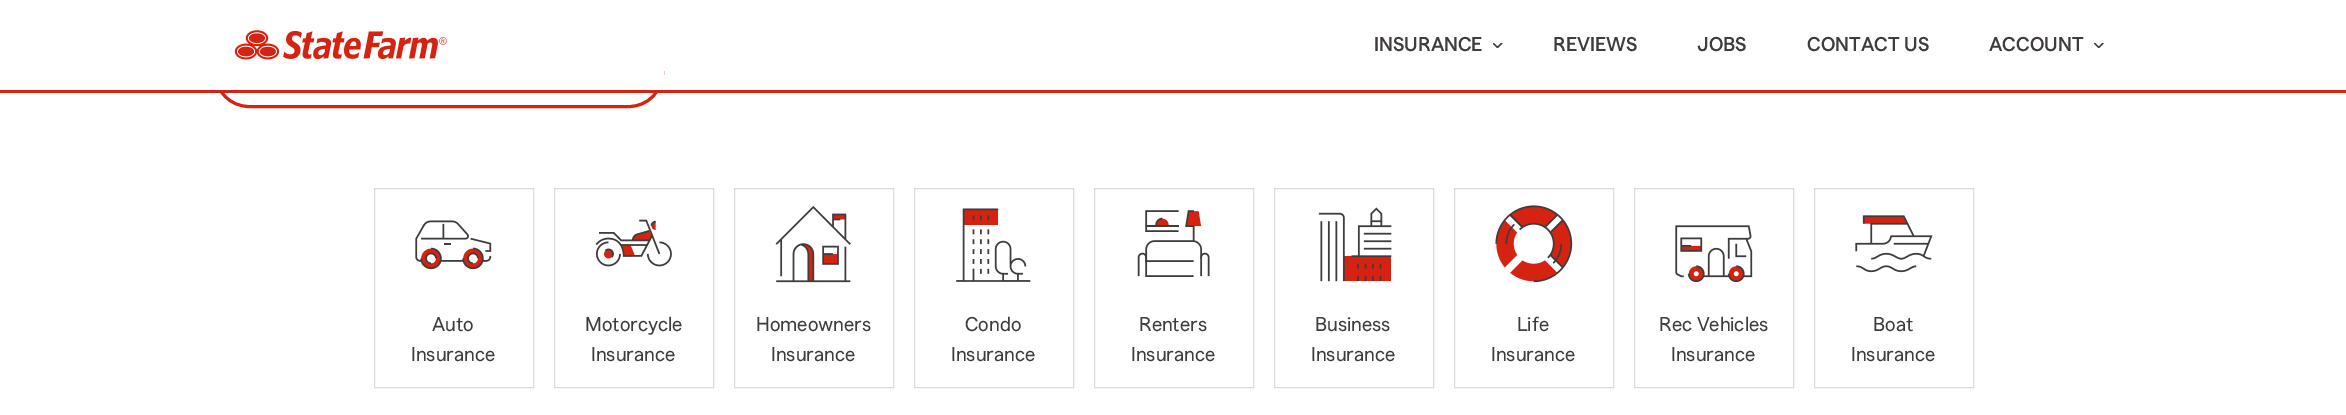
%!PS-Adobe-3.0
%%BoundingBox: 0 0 2346 415
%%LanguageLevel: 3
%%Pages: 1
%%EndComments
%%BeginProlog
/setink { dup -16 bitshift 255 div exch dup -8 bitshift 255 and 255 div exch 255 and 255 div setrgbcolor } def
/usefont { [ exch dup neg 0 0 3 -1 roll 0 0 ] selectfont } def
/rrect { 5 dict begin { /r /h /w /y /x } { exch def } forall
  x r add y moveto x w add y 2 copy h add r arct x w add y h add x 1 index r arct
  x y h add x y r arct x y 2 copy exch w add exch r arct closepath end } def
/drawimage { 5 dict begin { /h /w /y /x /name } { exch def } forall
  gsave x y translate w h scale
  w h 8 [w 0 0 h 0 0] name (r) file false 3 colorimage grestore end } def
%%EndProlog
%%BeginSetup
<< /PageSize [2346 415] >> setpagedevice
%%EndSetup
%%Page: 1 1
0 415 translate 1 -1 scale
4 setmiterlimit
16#FFFFFF setink
0 0 2346 415 rectfill
16#D62311 setink
3 setlinewidth
215.5 39.5 447 67 33.5 rrect stroke
16#FFFFFF setink
214 38 450 52 rectfill
16#D62311 setink
0 90 2346 3 rectfill
(img1.raw) 234 30 213 30 drawimage
/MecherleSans-Medium 20 usefont
16#403C3C setink
1374 51 moveto (INSURANCE) show
(img2.raw) 1493 43 10 5 drawimage
[
    [(REVIEWS) 1553 51]
    [(JOBS) 1697 51]
    [(CONTACT US) 1807 51]
    [(ACCOUNT) 1989 51]
] { aload pop moveto show } forall
(img3.raw) 2094 43 10 5 drawimage
16#DCDCDC setink
1 setlinewidth
374.5 188.5 159 199 rectstroke
(img4.raw) 415 220 77 50 drawimage
/MecherleSans-Regular 20 usefont
16#403C3C setink
432 331 moveto (Auto) show
411 361 moveto (Insurance) show
16#DCDCDC setink
554.5 188.5 159 199 rectstroke
(img5.raw) 595 219 77 48 drawimage
16#403C3C setink
585 331 moveto (Motorcycle) show
591 361 moveto (Insurance) show
16#DCDCDC setink
734.5 188.5 159 199 rectstroke
(img6.raw) 775 206 76 77 drawimage
16#403C3C setink
756 331 moveto (Homeowners) show
771 361 moveto (Insurance) show
16#DCDCDC setink
914.5 188.5 159 199 rectstroke
(img7.raw) 956 208 75 74 drawimage
16#403C3C setink
965 331 moveto (Condo) show
951 361 moveto (Insurance) show
16#DCDCDC setink
1094.5 188.5 159 199 rectstroke
(img8.raw) 1137 210 73 67 drawimage
16#403C3C setink
1139 331 moveto (Renters) show
1131 361 moveto (Insurance) show
16#DCDCDC setink
1274.5 188.5 159 199 rectstroke
(img9.raw) 1318 207 74 75 drawimage
16#403C3C setink
1315 331 moveto (Business) show
1311 361 moveto (Insurance) show
16#DCDCDC setink
1454.5 188.5 159 199 rectstroke
(img10.raw) 1495 205 78 78 drawimage
16#403C3C setink
1517 331 moveto (Life) show
1491 361 moveto (Insurance) show
16#DCDCDC setink
1634.5 188.5 159 199 rectstroke
(img11.raw) 1675 225 78 58 drawimage
16#403C3C setink
1659 331 moveto (Rec Vehicles) show
1671 361 moveto (Insurance) show
16#DCDCDC setink
1814.5 188.5 159 199 rectstroke
(img12.raw) 1855 215 78 58 drawimage
16#403C3C setink
1873 331 moveto (Boat) show
1851 361 moveto (Insurance) show
showpage
%%EOF
